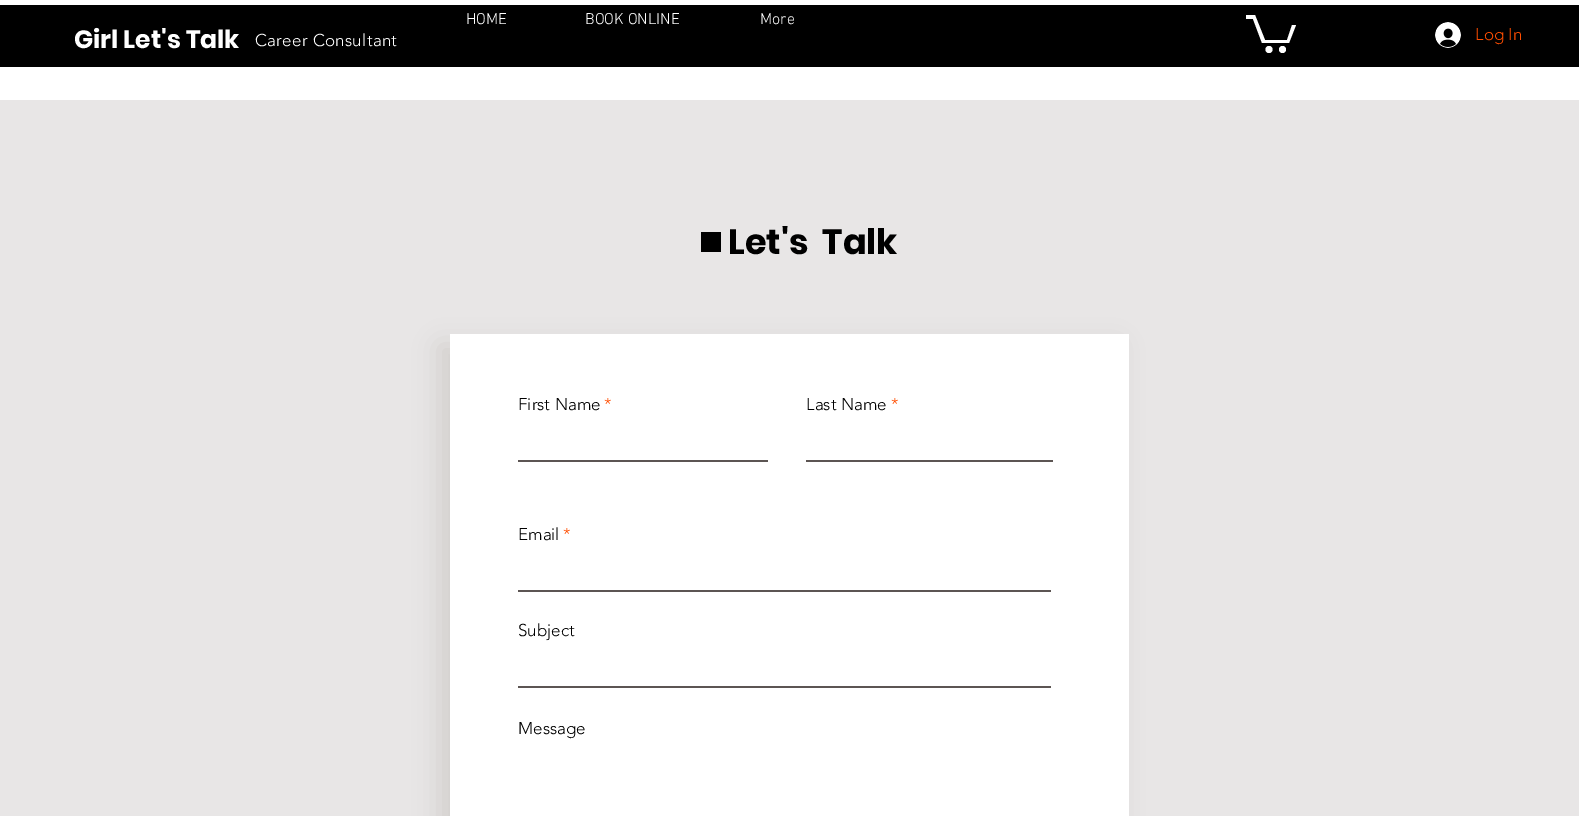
%!PS-Adobe-3.0
%%BoundingBox: 0 0 1579 816
%%LanguageLevel: 3
%%Pages: 1
%%EndComments
%%BeginProlog
/setink { dup -16 bitshift 255 div exch dup -8 bitshift 255 and 255 div exch 255 and 255 div setrgbcolor } def
/usefont { [ exch dup neg 0 0 3 -1 roll 0 0 ] selectfont } def
/setalpha { dup .setfillconstantalpha .setstrokeconstantalpha } def
/disc { newpath 0 360 arc closepath } def
/rrect { 5 dict begin { /r /h /w /y /x } { exch def } forall
  x r add y moveto x w add y 2 copy h add r arct x w add y h add x 1 index r arct
  x y h add x y r arct x y 2 copy exch w add exch r arct closepath end } def
/softshadow { 12 dict begin { /a /b /q /h /w /y /x } { exch def } forall gsave /was 0 def
  9 -2 -9 { dup b mul 4 div /e exch def 1 sub .425 mul 2.718 exch exp 1 add a .99 .min exch div /now exch def
    1 1 now sub 1 was sub div sub setalpha /was now def
    w h .min e 2 mul add 0 gt { x e sub y e sub w e 2 mul add h e 2 mul add
      q e add b .6 mul add w h .min 2 div e add .min 0 .max rrect fill } if } for grestore end } def
/drawimage { 5 dict begin { /h /w /y /x /name } { exch def } forall
  gsave x y translate w h scale
  w h 8 [w 0 0 h 0 0] name (r) file false 3 colorimage grestore end } def
%%EndProlog
%%BeginSetup
<< /PageSize [1579 816] /PageUsesTransparency true >> setpagedevice
%%EndSetup
%%Page: 1 1
0 .pushpdf14devicefilter
0 816 translate 1 -1 scale
4 setmiterlimit
16#FFFFFF setink
0 0 1579 816 rectfill
16#000000 setink
0 5 1579 62 rectfill
/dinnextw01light-Light 16 usefont
16#FFFFFF setink
[
    [(HOME) 466 24]
    [(BOOK ONLINE) 585 24]
    [(More) 760 24]
] { aload pop moveto show } forall
1296 25 moveto 1289 43 lineto 1262 43 lineto 1253 19 lineto 1246 19 lineto 1246 15 lineto 1255 15 lineto 1265 40 lineto 1287 40 lineto 1292 25 lineto fill
1282.5 49.5 3.5 disc fill
1269 49.5 3.5 disc fill
/Poppins-Bold 25 usefont
74 48 moveto (Girl Let's Talk) show
/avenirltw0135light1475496-Light 17 usefont
255 46 moveto 0.3 0 (Career Consultant) ashow
(img1.raw) 1435 22 26 26 drawimage
16#FF4D00 setink
1475 40 moveto (Log In) show
16#E8E6E6 setink
0 100 1579 716 rectfill
16#000000 setink
701 232 20 20 rectfill
/Poppins-Bold 35 usefont
728 254 moveto (Let's  Talk) show
16#8A837C setink
439 345 679 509 0 12.5 0.23 softshadow
16#FFFFFF setink
450 334 679 482 rectfill
/avenirltw0135light1475496-Light 17 usefont
16#000000 setink
518 410 moveto (First Name) show
16#FF4D00 setink
604 410 moveto (*) show
16#5C5553 setink
518 460 250 2 rectfill
16#000000 setink
806 410 moveto (Last Name) show
16#FF4D00 setink
891 410 moveto (*) show
16#5C5553 setink
806 460 247 2 rectfill
16#000000 setink
518 540 moveto (Email) show
16#FF4D00 setink
563 540 moveto (*) show
16#5C5553 setink
518 590 533 2 rectfill
16#000000 setink
518 636 moveto (Subject) show
16#5C5553 setink
518 686 533 2 rectfill
16#000000 setink
518 734 moveto (Message) show
.poppdf14devicefilter showpage
%%EOF
